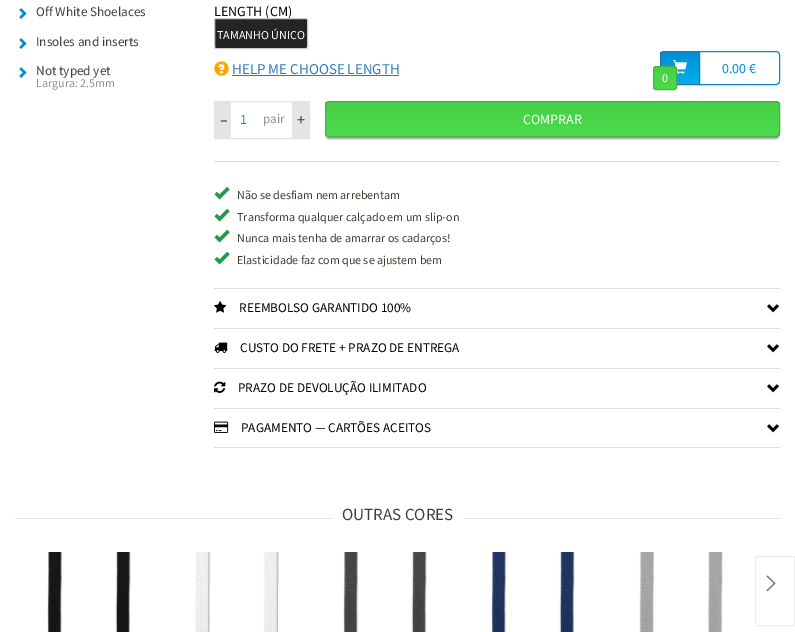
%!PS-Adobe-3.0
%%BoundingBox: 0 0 795 632
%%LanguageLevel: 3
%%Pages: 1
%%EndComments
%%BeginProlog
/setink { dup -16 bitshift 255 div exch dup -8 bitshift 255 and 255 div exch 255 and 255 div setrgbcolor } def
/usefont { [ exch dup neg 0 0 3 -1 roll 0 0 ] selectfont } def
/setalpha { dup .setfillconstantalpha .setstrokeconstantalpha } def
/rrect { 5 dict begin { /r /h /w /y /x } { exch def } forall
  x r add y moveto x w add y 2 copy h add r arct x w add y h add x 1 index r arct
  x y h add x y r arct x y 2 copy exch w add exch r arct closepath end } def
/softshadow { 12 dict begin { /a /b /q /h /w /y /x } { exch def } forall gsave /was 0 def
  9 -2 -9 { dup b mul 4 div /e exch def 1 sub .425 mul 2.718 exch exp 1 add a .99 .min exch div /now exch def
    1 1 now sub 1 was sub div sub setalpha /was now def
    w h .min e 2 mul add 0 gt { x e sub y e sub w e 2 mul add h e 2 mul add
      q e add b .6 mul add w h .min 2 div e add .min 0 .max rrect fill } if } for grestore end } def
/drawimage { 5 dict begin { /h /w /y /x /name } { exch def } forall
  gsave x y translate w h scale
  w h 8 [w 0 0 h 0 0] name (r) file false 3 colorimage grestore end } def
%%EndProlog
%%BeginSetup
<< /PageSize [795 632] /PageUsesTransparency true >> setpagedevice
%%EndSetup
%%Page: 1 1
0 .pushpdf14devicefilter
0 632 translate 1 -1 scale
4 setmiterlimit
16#FFFFFF setink
0 0 795 632 rectfill
(img1.raw) 19 8 8 11 drawimage
/SourceSansPro-Regular 13.25 usefont
16#443E32 setink
36 16 moveto (Off White Shoelaces) show
(img1.raw) 19 38 8 11 drawimage
36 46 moveto (Insoles and inserts) show
(img1.raw) 19 67 8 11 drawimage
36 75 moveto (Not typed yet) show
/SourceSansPro-Regular 12 usefont
16#919191 setink
36 87 moveto (Largura: 2.5mm) show
/SourceSansPro-Regular 14 usefont
16#000000 setink
214 16 moveto (LENGTH \(CM\)) show
16#242424 setink
214.5 18.5 93 30 1.5 rrect gsave fill grestore
16#CCCCCC setink
stroke
/SourceSansPro-Regular 12 usefont
16#FFFFFF setink
217 39 moveto (TAMANHO ÚNICO) show
(img2.raw) 214 61 15 15 drawimage
/SourceSansPro-Regular 15 usefont
16#337AB7 setink
232 74 moveto (HELP ME CHOOSE LENGTH) show
232 75 167 1 rectfill
16#DDDDDD setink
214 161 566 1 rectfill
16#E4E4E4 setink
214.5 101.5 95 37 rectstroke
215 102 16 36 rectfill
/SourceSansPro-Regular 16 usefont
16#333333 setink
220 125 moveto (–) show
/SourceSansPro-Regular 14 usefont
16#008DD2 setink
240 124 moveto (1) show
/SourceSansPro-Regular 13 usefont
16#919191 setink
263 123 moveto (pair) show
16#E4E4E4 setink
292 102 17 36 rectfill
/SourceSansPro-Regular 16 usefont
16#333333 setink
297 125 moveto (+) show
16#000000 setink
326 105 453 34 3 1 0.4 softshadow
gsave
325 101 455 36 4 rrect clip newpath
gsave 325 102 moveto 780 102 lineto 780 136 lineto 325 136 lineto closepath clip newpath
<< /ShadingType 2 /ColorSpace /DeviceRGB /Coords [553 102 553 136] /Extend [true true] /Function << /FunctionType 2 /Domain [0 1] /C0 [0.278 0.812 0.278] /C1 [0.298 0.859 0.298] /N 1 >> >> shfill grestore
grestore
16#4CAE4C setink
325.5 101.5 454 35 3.5 rrect stroke
/SourceSansPro-Regular 14 usefont
16#FFFFFF setink
523 124 moveto (COMPRAR) show
(img3.raw) 214 186 16 14 drawimage
/SourceSansPro-Regular 12 usefont
16#443E32 setink
237 199 moveto (Não se desfiam nem arrebentam) show
(img3.raw) 214 208 16 14 drawimage
237 221 moveto (Transforma qualquer calçado em um slip-on) show
(img3.raw) 214 229 16 14 drawimage
237 242 moveto (Nunca mais tenha de amarrar os cadarços!) show
(img3.raw) 214 251 16 14 drawimage
237 264 moveto (Elasticidade faz com que se ajustem bem) show
16#DDDDDD setink
214 288 566 1 rectfill
214 328 566 1 rectfill
(img4.raw) 214 301 13 12 drawimage
/SourceSansPro-Regular 13.25 usefont
16#000000 setink
239 312 moveto (REEMBOLSO GARANTIDO 100%) show
(img5.raw) 767 304 12 9 drawimage
16#DDDDDD setink
214 368 566 1 rectfill
(img6.raw) 214 342 14 11 drawimage
16#000000 setink
240 352 moveto (CUSTO DO FRETE + PRAZO DE ENTREGA) show
(img5.raw) 767 344 12 9 drawimage
16#DDDDDD setink
214 408 566 1 rectfill
(img7.raw) 214 381 12 12 drawimage
16#000000 setink
238 392 moveto (PRAZO DE DEVOLUÇÃO ILIMITADO) show
(img5.raw) 767 384 12 9 drawimage
16#DDDDDD setink
214 447 566 1 rectfill
(img8.raw) 214 421 15 12 drawimage
16#000000 setink
241 432 moveto (PAGAMENTO — CARTÕES ACEITOS) show
(img5.raw) 767 424 12 9 drawimage
16#E7E7E7 setink
15 518 765 1 rectfill
16#FFFFFF setink
332 518 131 1 rectfill
/SourceSansPro-Regular 17 usefont
16#443E32 setink
342 520 moveto (OUTRAS CORES) show
(img9.raw) 47 552 84 80 drawimage
(img10.raw) 195 552 84 80 drawimage
(img11.raw) 343 552 84 80 drawimage
(img12.raw) 491 552 84 80 drawimage
(img13.raw) 639 552 84 80 drawimage
16#EEEEEE setink
755.5 556.5 39 69 rectstroke
(img14.raw) 766 575 10 17 drawimage
gsave
664 51 moveto 700 51 lineto 700 85 lineto 664 85 lineto 662 85 660 83 660 81 curveto 660 55 lineto 660 53 662 51 664 51 curveto closepath clip newpath
gsave 660 52 moveto 699 52 lineto 699 84 lineto 660 84 lineto closepath clip newpath
<< /ShadingType 2 /ColorSpace /DeviceRGB /Coords [680 52 680 84] /Extend [true true] /Function << /FunctionType 2 /Domain [0 1] /C0 [0 0.553 0.824] /C1 [0 0.682 0.937] /N 1 >> >> shfill grestore
grestore
16#2E6DA4 setink
664 51.5 moveto 699.5 51.5 lineto 699.5 84.5 lineto 664 84.5 lineto 662 84.5 660.5 83 660.5 81 curveto 660.5 55 lineto 660.5 53 662 51.5 664 51.5 curveto closepath stroke
(img15.raw) 673 60 14 14 drawimage
16#FFFFFF setink
699.5 51.5 moveto 776 51.5 lineto 778 51.5 779.5 53 779.5 55 curveto 779.5 81 lineto 779.5 83 778 84.5 776 84.5 curveto 699.5 84.5 lineto closepath gsave fill grestore
16#008BCE setink
stroke
/SourceSansPro-Regular 14 usefont
16#008DD2 setink
722 73 moveto (0.00 €) show
gsave
653 66 24 24 3 rrect clip newpath
gsave 653 67 moveto 677 67 lineto 677 89 lineto 653 89 lineto closepath clip newpath
<< /ShadingType 2 /ColorSpace /DeviceRGB /Coords [665 67 665 89] /Extend [true true] /Function << /FunctionType 2 /Domain [0 1] /C0 [0.278 0.812 0.278] /C1 [0.298 0.859 0.298] /N 1 >> >> shfill grestore
grestore
16#4CAE4C setink
653.5 66.5 23 23 2.5 rrect stroke
/SourceSansPro-Regular 12 usefont
16#FFFFFF setink
662 82 moveto (0) show
.poppdf14devicefilter showpage
%%EOF
